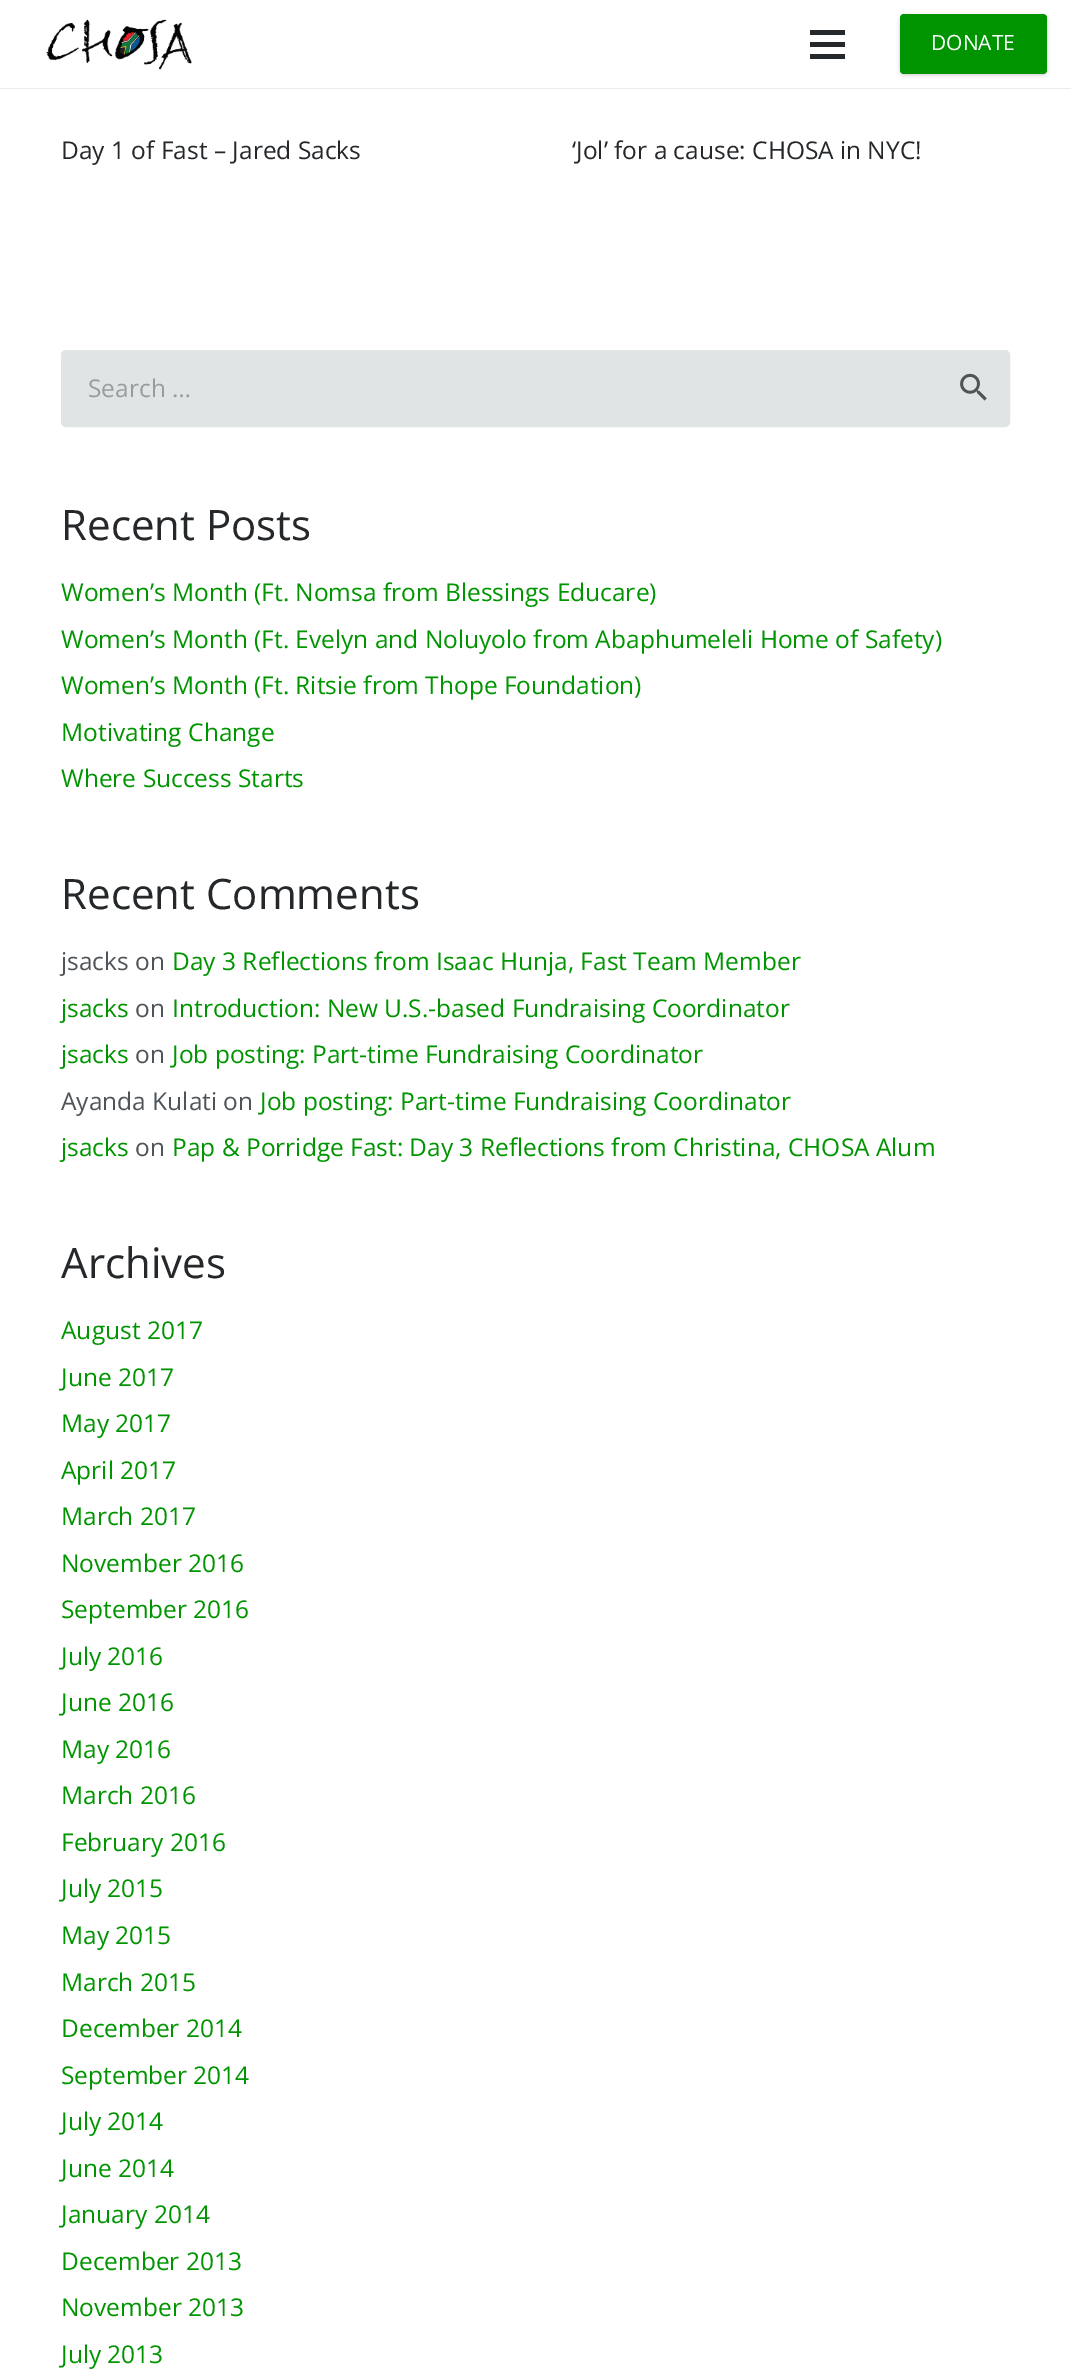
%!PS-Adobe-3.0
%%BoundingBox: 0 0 1071 2376
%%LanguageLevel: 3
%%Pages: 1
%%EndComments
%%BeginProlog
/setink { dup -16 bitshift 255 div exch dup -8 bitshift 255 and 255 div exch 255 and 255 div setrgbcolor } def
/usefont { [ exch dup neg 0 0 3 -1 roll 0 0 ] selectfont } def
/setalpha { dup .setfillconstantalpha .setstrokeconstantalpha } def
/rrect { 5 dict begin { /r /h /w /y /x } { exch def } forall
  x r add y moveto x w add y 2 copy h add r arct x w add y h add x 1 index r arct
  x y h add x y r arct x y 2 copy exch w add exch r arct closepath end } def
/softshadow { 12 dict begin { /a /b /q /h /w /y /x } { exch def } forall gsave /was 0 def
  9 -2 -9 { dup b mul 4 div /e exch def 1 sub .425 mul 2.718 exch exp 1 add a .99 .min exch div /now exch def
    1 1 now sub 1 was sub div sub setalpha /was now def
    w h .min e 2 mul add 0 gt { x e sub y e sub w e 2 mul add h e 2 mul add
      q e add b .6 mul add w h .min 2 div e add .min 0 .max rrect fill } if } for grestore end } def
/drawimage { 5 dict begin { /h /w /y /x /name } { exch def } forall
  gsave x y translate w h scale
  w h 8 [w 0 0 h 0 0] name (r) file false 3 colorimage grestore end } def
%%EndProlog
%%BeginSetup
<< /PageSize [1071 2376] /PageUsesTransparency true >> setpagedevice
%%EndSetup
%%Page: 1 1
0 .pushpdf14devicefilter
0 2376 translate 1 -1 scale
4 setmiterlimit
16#FFFFFF setink
0 0 1071 2376 rectfill
16#EBEBEB setink
0 88 1071 1 rectfill
(img1.raw) 46 19 146 51 drawimage
[
    [810 42 35 5 16#25282B]
    [810 30 35 5 16#25282B]
    [810 54 35 5 16#25282B]
] { aload pop setink rectfill } forall
16#000000 setink
900 16 147 59 4 2 0.2 softshadow
16#009400 setink
900 14 147 60 4 rrect fill
/OpenSans-Regular 21 usefont
16#FFFFFF setink
931 50 moveto (DONATE) show
/OpenSans-Regular 24.5 usefont
16#25282B setink
61 159 moveto (Day 1 of Fast – Jared Sacks) show
572 159 moveto (‘Jol’ for a cause: CHOSA in NYC!) show
16#E1E4E5 setink
62 351 947 75 4 rrect gsave fill grestore
2 setlinewidth
stroke
16#989C9F setink
88 397 moveto (Search …) show
(img2.raw) 960 373 27 28 drawimage
/OpenSans-Regular 42 usefont
16#25282B setink
61 540 moveto (Recent Posts) show
/OpenSans-Regular 24.5 usefont
16#009400 setink
[
    [(Women’s Month \(Ft. Nomsa from Blessings Educare\)) 61 601]
    [(Women’s Month \(Ft. Evelyn and Noluyolo from Abaphumeleli Home of Safety\)) 61 648]
    [(Women’s Month \(Ft. Ritsie from Thope Foundation\)) 61 694]
    [(Motivating Change) 61 741]
    [(Where Success Starts) 61 787]
] { aload pop moveto show } forall
/OpenSans-Regular 42 usefont
16#25282B setink
61 909 moveto (Recent Comments) show
/OpenSans-Regular 24.5 usefont
16#4F5459 setink
61 970 moveto (jsacks on) show
16#009400 setink
172 970 moveto (Day 3 Reflections from Isaac Hunja, Fast Team Member) show
61 1017 moveto (jsacks) show
16#4F5459 setink
135 1017 moveto (on) show
16#009400 setink
172 1017 moveto (Introduction: New U.S.-based Fundraising Coordinator) show
61 1063 moveto (jsacks) show
16#4F5459 setink
135 1063 moveto (on) show
16#009400 setink
172 1063 moveto (Job posting: Part-time Fundraising Coordinator) show
16#4F5459 setink
61 1110 moveto (Ayanda Kulati on) show
16#009400 setink
260 1110 moveto (Job posting: Part-time Fundraising Coordinator) show
61 1156 moveto (jsacks) show
16#4F5459 setink
135 1156 moveto (on) show
16#009400 setink
172 1156 moveto (Pap & Porridge Fast: Day 3 Reflections from Christina, CHOSA Alum) show
/OpenSans-Regular 42 usefont
16#25282B setink
61 1278 moveto (Archives) show
/OpenSans-Regular 24.5 usefont
16#009400 setink
[
    [(August 2017) 61 1339]
    [(June 2017) 61 1386]
    [(May 2017) 61 1432]
    [(April 2017) 61 1479]
    [(March 2017) 61 1525]
    [(November 2016) 61 1572]
    [(September 2016) 61 1618]
    [(July 2016) 61 1665]
    [(June 2016) 61 1711]
    [(May 2016) 61 1758]
    [(March 2016) 61 1804]
    [(February 2016) 61 1851]
    [(July 2015) 61 1897]
    [(May 2015) 61 1944]
    [(March 2015) 61 1991]
    [(December 2014) 61 2037]
    [(September 2014) 61 2084]
    [(July 2014) 61 2130]
    [(June 2014) 61 2177]
    [(January 2014) 61 2223]
    [(December 2013) 61 2270]
    [(November 2013) 61 2316]
    [(July 2013) 61 2363]
] { aload pop moveto show } forall
.poppdf14devicefilter showpage
%%EOF
